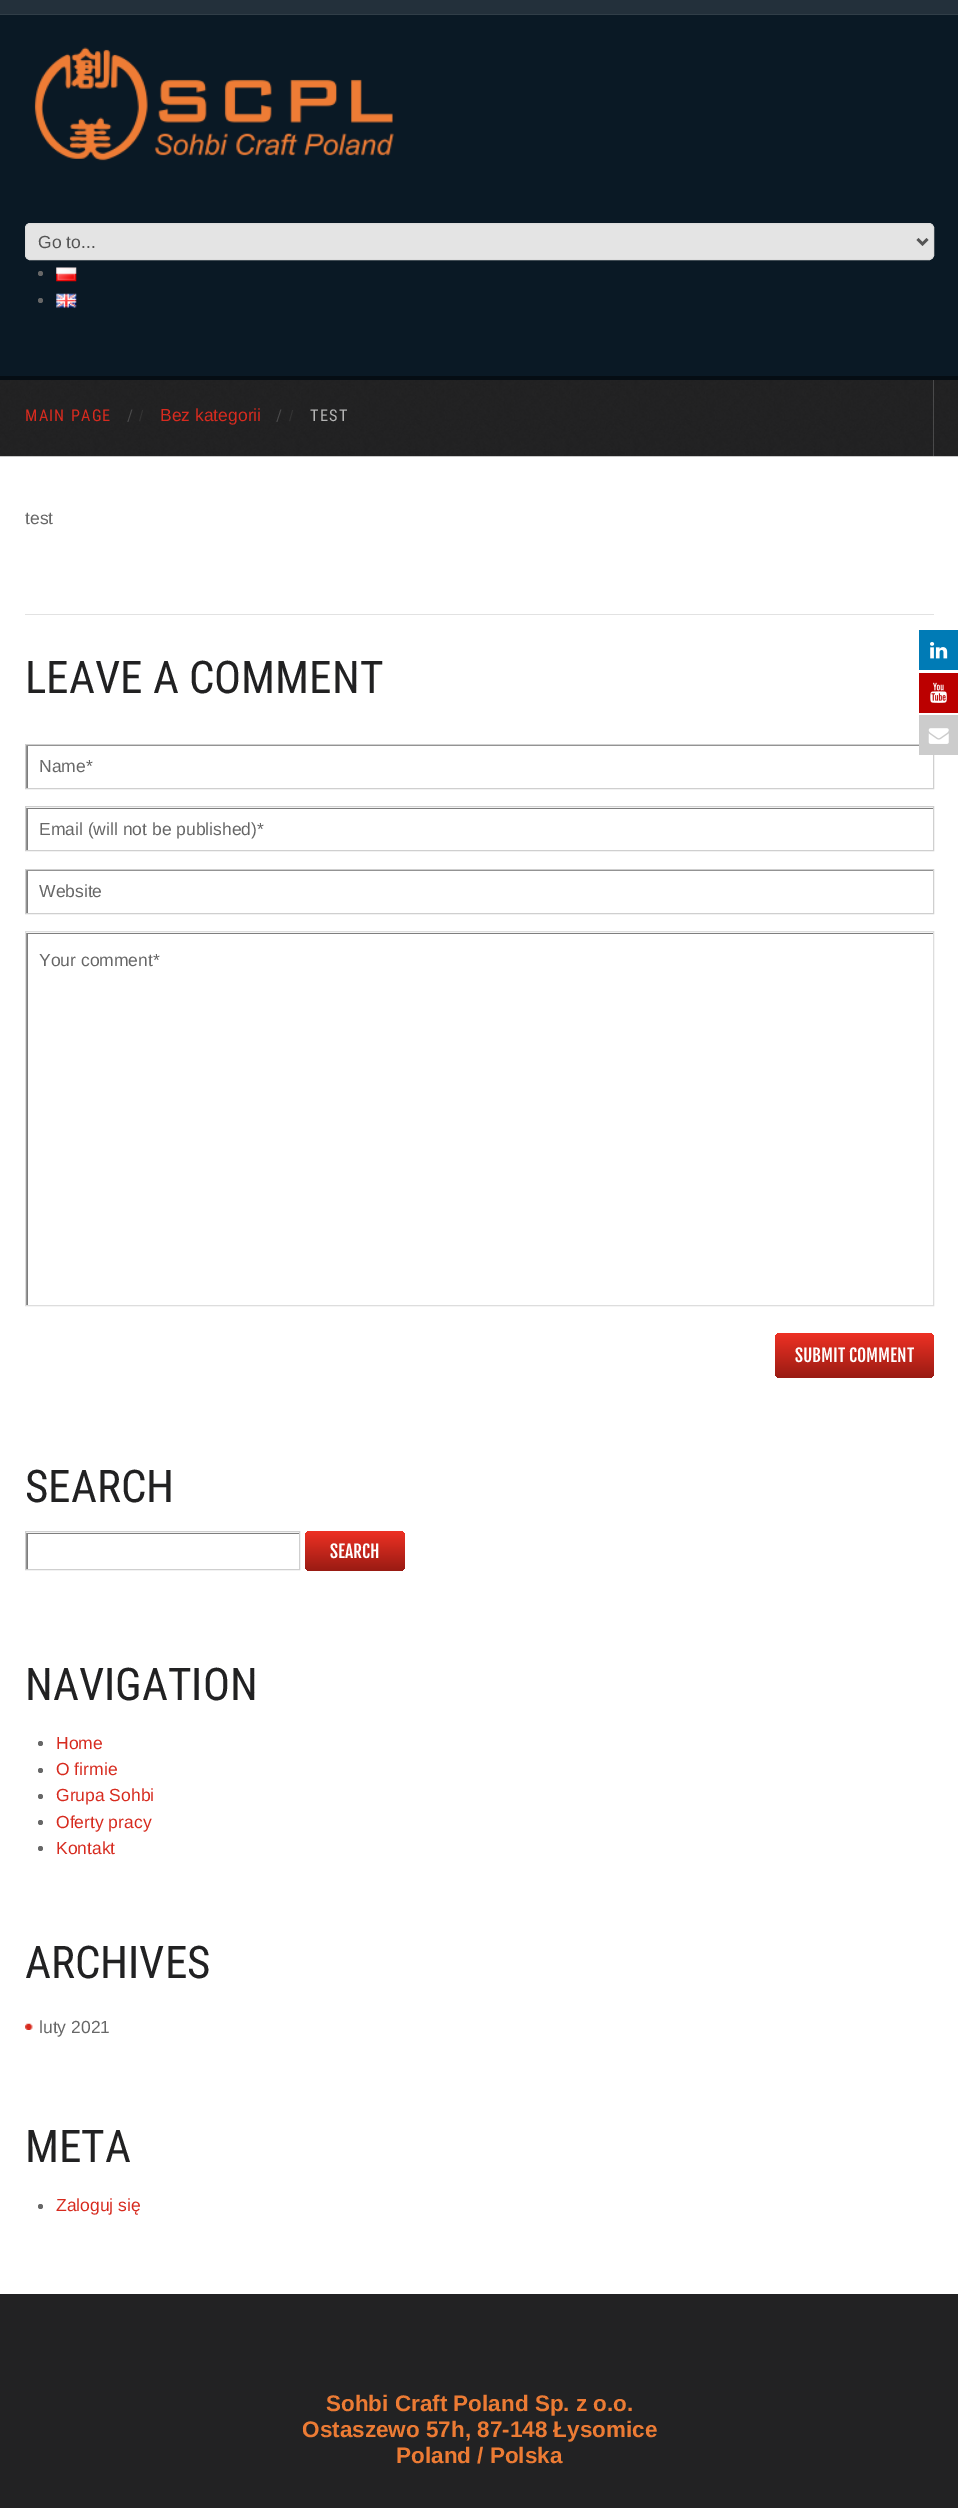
%!PS-Adobe-3.0
%%BoundingBox: 0 0 958 2508
%%LanguageLevel: 3
%%Pages: 1
%%EndComments
%%BeginProlog
/setink { dup -16 bitshift 255 div exch dup -8 bitshift 255 and 255 div exch 255 and 255 div setrgbcolor } def
/usefont { [ exch dup neg 0 0 3 -1 roll 0 0 ] selectfont } def
/disc { newpath 0 360 arc closepath } def
/rrect { 5 dict begin { /r /h /w /y /x } { exch def } forall
  x r add y moveto x w add y 2 copy h add r arct x w add y h add x 1 index r arct
  x y h add x y r arct x y 2 copy exch w add exch r arct closepath end } def
/drawimage { 5 dict begin { /h /w /y /x /name } { exch def } forall
  gsave x y translate w h scale
  w h 8 [w 0 0 h 0 0] name (r) file false 3 colorimage grestore end } def
%%EndProlog
%%BeginSetup
<< /PageSize [958 2508] >> setpagedevice
%%EndSetup
%%Page: 1 1
0 2508 translate 1 -1 scale
4 setmiterlimit
16#222223 setink
0 0 958 2508 rectfill
[
    [0 15 958 361 16#0A1925]
    [0 0 958 14 16#23303B]
    [0 376 958 4 16#050D14]
    [0 14 958 1 16#313E48]
] { aload pop setink rectfill } forall
(img1.raw) 34 47 360 114 drawimage
16#E4E4E4 setink
25.5 223.5 908 36 4.5 rrect gsave fill grestore
16#DDDDDD setink
stroke
16#555555 setink
2.5 setlinewidth
917.5 239 moveto 922.5 244 lineto 927.5 239 lineto stroke
/LiberationSans-Regular 17.5 usefont
38 248 moveto (Go to...) show
16#676767 setink
40.5 273.5 2.5 disc fill
(img2.raw) 56 267 21 15 drawimage
40.5 300.5 2.5 disc fill
(img3.raw) 56 293 21 15 drawimage
16#FFFFFF setink
0 380 958 1914 rectfill
(img4.raw) 25 380 909 77 drawimage
(img5.raw) 0 380 25 77 drawimage
/RobotoCondensed-Regular 16.25 usefont
16#D72B1F setink
25 421 moveto 1.25 0 (MAIN PAGE) ashow
16#4B4B4C setink
127 421 moveto 1.25 0 (/) ashow
/LiberationSans-Regular 15 usefont
16#333333 setink
139 421 moveto 1.25 0 (/) ashow
/LiberationSans-Regular 17.5 usefont
16#D72B1F setink
160 421 moveto (Bez kategorii) show
/RobotoCondensed-Regular 16.25 usefont
16#4B4B4C setink
276 421 moveto 1.25 0 (/) ashow
/LiberationSans-Regular 15 usefont
16#333333 setink
289 421 moveto 1.25 0 (/) ashow
/RobotoCondensed-Regular 16.25 usefont
16#B4B4B4 setink
310 421 moveto 1.25 0 (TEST) ashow
(img6.raw) 933 380 25 77 drawimage
/LiberationSans-Regular 17.5 usefont
16#676767 setink
25 524 moveto (test) show
16#E2E2E2 setink
25 614 909 1 rectfill
/RobotoCondensed-Regular 45 usefont
16#212122 setink
25 693 moveto (LEAVE A COMMENT) show
gsave
26 745 907 43 rectclip
16#7E7E7E setink
-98 621 moveto 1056 621 lineto 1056 911 lineto -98 911 lineto closepath 28 746 moveto 934 746 lineto 934 789 lineto 28 789 lineto closepath eofill
grestore
16#CFCFCF setink
1 setlinewidth
25.5 744.5 908 44 rectstroke
/LiberationSans-Regular 17.5 usefont
16#676767 setink
39 772 moveto (Name*) show
gsave
26 808 907 42 rectclip
16#7E7E7E setink
-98 684 moveto 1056 684 lineto 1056 974 lineto -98 974 lineto closepath 28 809 moveto 934 809 lineto 934 851 lineto 28 851 lineto closepath eofill
grestore
16#CFCFCF setink
25.5 806.5 908 44 rectstroke
16#676767 setink
39 835 moveto (Email \(will not be published\)*) show
gsave
26 870 907 43 rectclip
16#7E7E7E setink
-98 746 moveto 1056 746 lineto 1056 1036 lineto -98 1036 lineto closepath 28 871 moveto 934 871 lineto 934 914 lineto 28 914 lineto closepath eofill
grestore
16#CFCFCF setink
25.5 869.5 908 44 rectstroke
16#676767 setink
39 897 moveto (Website) show
gsave
26 933 907 372 rectclip
16#7E7E7E setink
-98 809 moveto 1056 809 lineto 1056 1429 lineto -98 1429 lineto closepath 28 934 moveto 934 934 lineto 934 1306 lineto 28 1306 lineto closepath eofill
grestore
16#DDDDDD setink
25.5 931.5 908 374 rectstroke
16#676767 setink
39 966 moveto (Your comment*) show
gsave 775 1333 159 45 5 rrect clip newpath
<< /ShadingType 2 /ColorSpace /DeviceRGB /Coords [854 1333 854 1378] /Extend [true true] /Function << /FunctionType 2 /Domain [0 1] /C0 [0.933 0.192 0.141] /C1 [0.6 0.106 0.075] /N 1 >> >> shfill grestore
/FjallaOne-Regular 17.5 usefont
16#FFFFFF setink
795 1362 moveto (SUBMIT COMMENT) show
/RobotoCondensed-Regular 45 usefont
16#212122 setink
25 1502 moveto (SEARCH) show
gsave
26 1533 273 36 rectclip
16#7E7E7E setink
-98 1409 moveto 422 1409 lineto 422 1692 lineto -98 1692 lineto closepath 28 1534 moveto 300 1534 lineto 300 1570 lineto 28 1570 lineto closepath eofill
grestore
16#CFCFCF setink
25.5 1531.5 274 38 rectstroke
gsave 305 1531 100 40 5 rrect clip newpath
<< /ShadingType 2 /ColorSpace /DeviceRGB /Coords [355 1531 355 1571] /Extend [true true] /Function << /FunctionType 2 /Domain [0 1] /C0 [0.933 0.192 0.141] /C1 [0.6 0.106 0.075] /N 1 >> >> shfill grestore
/FjallaOne-Regular 17.5 usefont
16#FFFFFF setink
330 1558 moveto (SEARCH) show
/RobotoCondensed-Regular 45 usefont
16#212122 setink
25 1700 moveto (NAVIGATION) show
16#676767 setink
40.5 1743.5 2.5 disc fill
/LiberationSans-Regular 17.5 usefont
16#D72B1F setink
56 1749 moveto (Home) show
16#676767 setink
40.5 1770.5 2.5 disc fill
16#D72B1F setink
56 1775 moveto (O firmie) show
16#676767 setink
40.5 1796.5 2.5 disc fill
16#D72B1F setink
56 1801 moveto (Grupa Sohbi) show
16#676767 setink
40.5 1822.5 2.5 disc fill
16#D72B1F setink
56 1828 moveto (Oferty pracy) show
16#676767 setink
40.5 1848.5 2.5 disc fill
16#D72B1F setink
56 1854 moveto (Kontakt) show
/RobotoCondensed-Regular 45 usefont
16#212122 setink
25 1978 moveto (ARCHIVES) show
(img7.raw) 25 2023 8 7 drawimage
/LiberationSans-Regular 17.5 usefont
16#676767 setink
39 2033 moveto (luty 2021) show
/RobotoCondensed-Regular 45 usefont
16#212122 setink
25 2162 moveto (META) show
16#676767 setink
40.5 2206.5 2.5 disc fill
/LiberationSans-Regular 17.5 usefont
16#D72B1F setink
56 2211 moveto (Zaloguj się) show
/LiberationSans-Bold 22.5 usefont
16#EC7B34 setink
[
    [(Sohbi Craft Poland Sp. z o.o.) 326 2411]
    [(Ostaszewo 57h, 87-148 Łysomice) 302 2437]
    [(Poland / Polska) 396 2463]
] { aload pop moveto show } forall
16#007BB6 setink
919 630 39 40 rectfill
(img8.raw) 930 642 18 17 drawimage
16#BB0000 setink
919 673 39 40 rectfill
(img9.raw) 930 682 17 21 drawimage
16#CCCCCC setink
919 715 39 40 rectfill
(img10.raw) 928 728 21 16 drawimage
showpage
%%EOF
